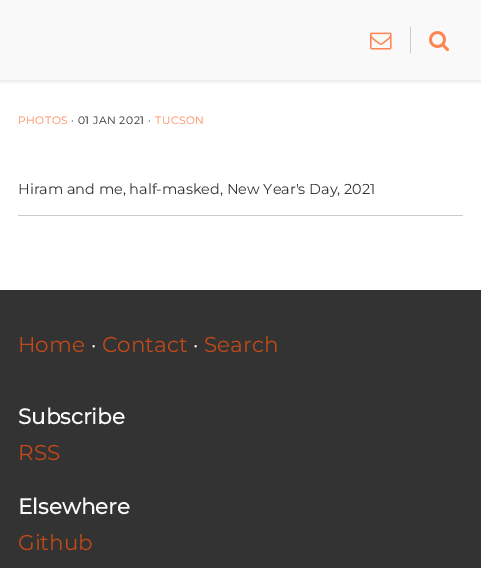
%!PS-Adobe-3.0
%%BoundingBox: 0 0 481 568
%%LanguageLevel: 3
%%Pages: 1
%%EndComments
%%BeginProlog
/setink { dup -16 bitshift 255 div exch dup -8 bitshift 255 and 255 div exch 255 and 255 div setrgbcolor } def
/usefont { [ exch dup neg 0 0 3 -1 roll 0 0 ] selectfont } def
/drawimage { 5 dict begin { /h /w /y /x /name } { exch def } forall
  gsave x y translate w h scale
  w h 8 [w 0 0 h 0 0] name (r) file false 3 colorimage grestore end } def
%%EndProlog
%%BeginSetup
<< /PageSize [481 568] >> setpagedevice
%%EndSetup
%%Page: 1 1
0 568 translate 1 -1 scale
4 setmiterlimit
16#333333 setink
0 0 481 568 rectfill
16#F9F9F9 setink
0 0 481 80 rectfill
16#CCCCCC setink
410 27 1 26 rectfill
(img1.raw) 370 32 22 18 drawimage
(img2.raw) 429 31 20 21 drawimage
gsave 0 80 moveto 481 80 lineto 481 85 lineto 0 85 lineto closepath clip newpath
<< /ShadingType 2 /ColorSpace /DeviceRGB /Coords [241 80 241 85] /Extend [true true] /Function << /FunctionType 2 /Domain [0 1] /C0 [0.922 0.922 0.922] /C1 [1 1 1] /N 1 >> >> shfill grestore
16#FFFFFF setink
0 85 481 205 rectfill
/Montserrat-Thin 10.75 usefont
16#FF8756 setink
18 124 moveto 0.5 0 (PHOTOS) ashow
16#333333 setink
71 124 moveto 0.5 0 (· 01 JAN 2021 ·) ashow
16#FF8756 setink
155 124 moveto 0.5 0 (TUCSON) ashow
/Montserrat-Thin 14.4 usefont
16#333333 setink
18 194 moveto (Hiram and me, half-masked, New Year's Day, 2021) show
16#CCCCCC setink
18 215 445 1 rectfill
/Montserrat-Thin 21.5 usefont
16#C24918 setink
18 352 moveto (Home) show
16#F9F9F9 setink
91 352 moveto (·) show
16#C24918 setink
102 352 moveto (Contact) show
16#F9F9F9 setink
193 352 moveto (·) show
16#C24918 setink
204 352 moveto (Search) show
/Montserrat-Bold 21.5 usefont
16#F9F9F9 setink
18 424 moveto (Subscribe) show
/Montserrat-Thin 21.5 usefont
16#C24918 setink
18 460 moveto (RSS) show
/Montserrat-Bold 21.5 usefont
16#F9F9F9 setink
18 514 moveto (Elsewhere) show
/Montserrat-Thin 21.5 usefont
16#C24918 setink
18 550 moveto (Github) show
showpage
%%EOF
